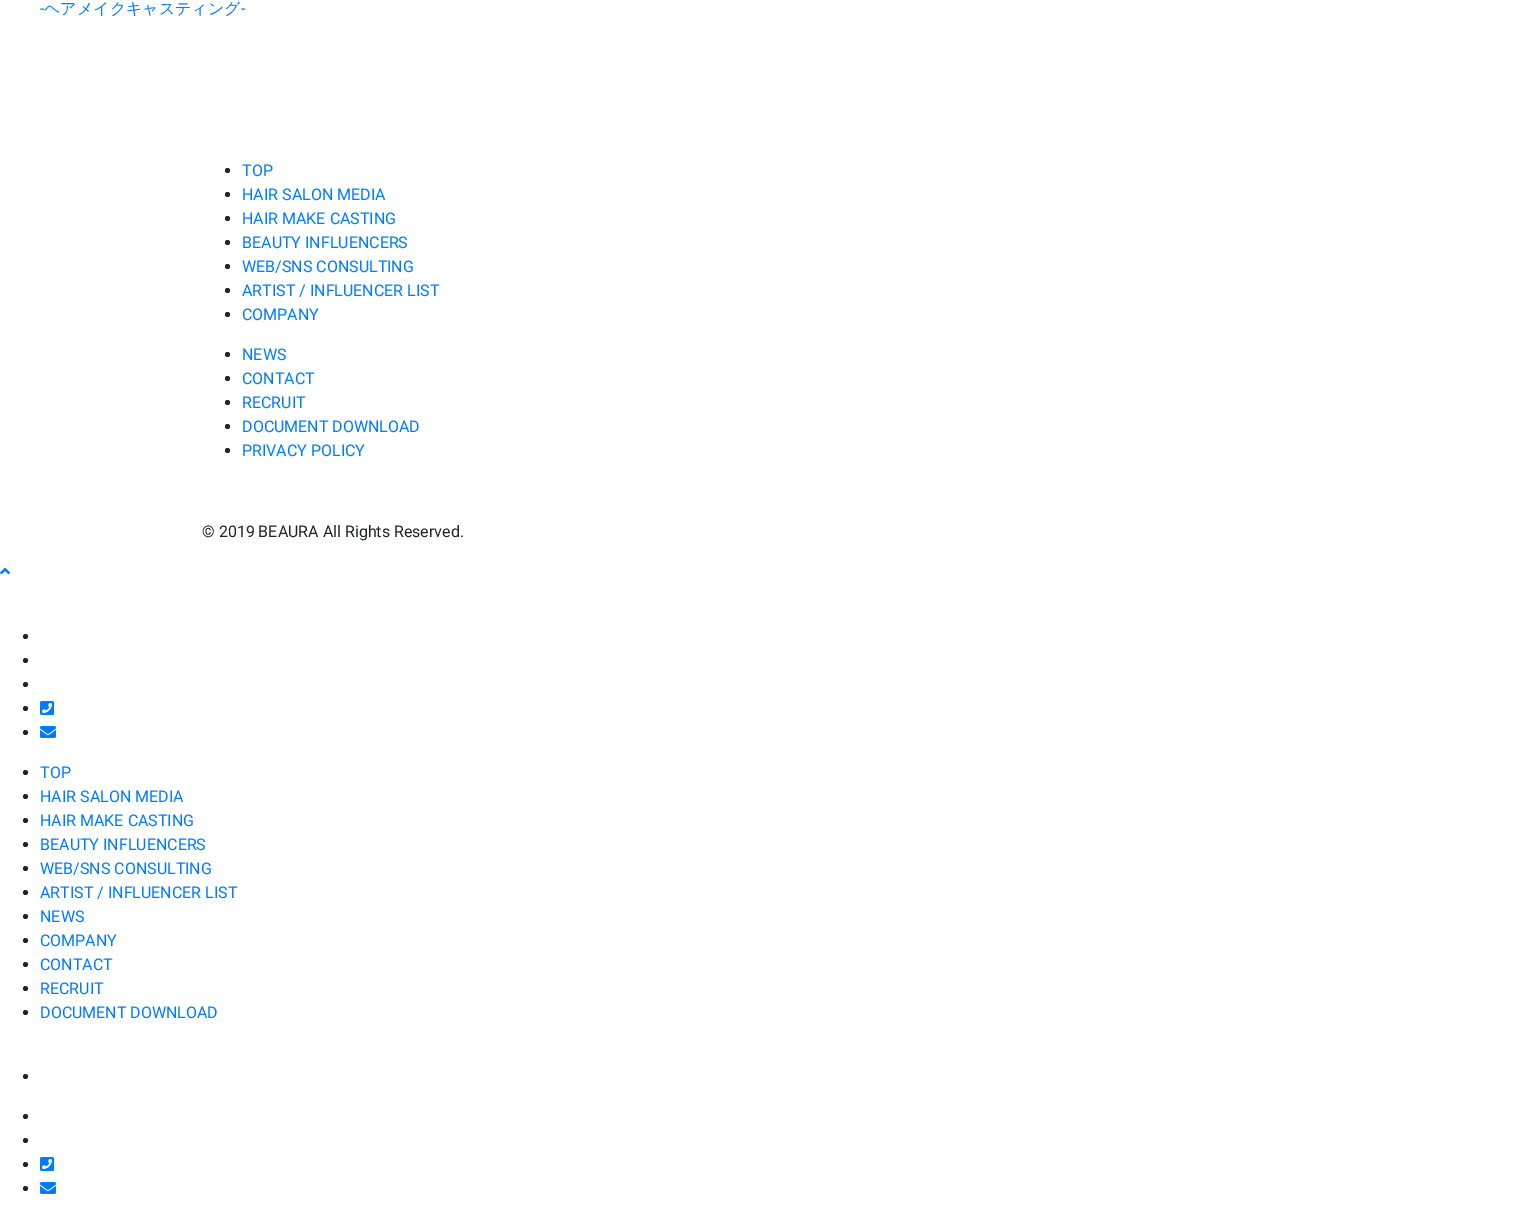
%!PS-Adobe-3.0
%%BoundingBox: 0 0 1513 1217
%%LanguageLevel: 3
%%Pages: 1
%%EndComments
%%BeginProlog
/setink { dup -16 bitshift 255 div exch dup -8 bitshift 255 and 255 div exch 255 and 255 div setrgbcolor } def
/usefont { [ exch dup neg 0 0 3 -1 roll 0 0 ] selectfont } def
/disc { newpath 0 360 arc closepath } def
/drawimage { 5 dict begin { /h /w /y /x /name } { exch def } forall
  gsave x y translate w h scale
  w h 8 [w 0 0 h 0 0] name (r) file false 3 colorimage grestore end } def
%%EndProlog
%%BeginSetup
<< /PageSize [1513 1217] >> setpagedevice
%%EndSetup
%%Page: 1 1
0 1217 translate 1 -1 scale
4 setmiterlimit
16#FFFFFF setink
0 0 1513 1217 rectfill
/Roboto-Regular 16 usefont
16#007BFF setink
40 14 moveto (-) show
/WenQuanYiZenHei-Medium 16 usefont
44 14 moveto (ヘアメイクキャスティング) show
/Roboto-Regular 16 usefont
241 14 moveto (-) show
16#212529 setink
227.5 170.5 2.5 disc fill
16#007BFF setink
242 176 moveto (TOP) show
16#212529 setink
227.5 194.5 2.5 disc fill
16#007BFF setink
242 200 moveto (HAIR SALON MEDIA) show
16#212529 setink
227.5 218.5 2.5 disc fill
16#007BFF setink
242 224 moveto (HAIR MAKE CASTING) show
16#212529 setink
227.5 242.5 2.5 disc fill
16#007BFF setink
242 248 moveto (BEAUTY INFLUENCERS) show
16#212529 setink
227.5 266.5 2.5 disc fill
16#007BFF setink
242 272 moveto (WEB/SNS CONSULTING) show
16#212529 setink
227.5 290.5 2.5 disc fill
16#007BFF setink
242 296 moveto (ARTIST / INFLUENCER LIST) show
16#212529 setink
227.5 314.5 2.5 disc fill
16#007BFF setink
242 320 moveto (COMPANY) show
16#212529 setink
227.5 354.5 2.5 disc fill
16#007BFF setink
242 360 moveto (NEWS) show
16#212529 setink
227.5 378.5 2.5 disc fill
16#007BFF setink
242 384 moveto (CONTACT) show
16#212529 setink
227.5 402.5 2.5 disc fill
16#007BFF setink
242 408 moveto (RECRUIT) show
16#212529 setink
227.5 426.5 2.5 disc fill
16#007BFF setink
242 432 moveto (DOCUMENT DOWNLOAD) show
16#212529 setink
227.5 450.5 2.5 disc fill
16#007BFF setink
242 456 moveto (PRIVACY POLICY) show
16#212529 setink
202 537 moveto (© 2019 BEAURA All Rights Reserved.) show
(img1.raw) 0 567 10 8 drawimage
25.5 636.5 2.5 disc fill
25.5 660.5 2.5 disc fill
25.5 684.5 2.5 disc fill
25.5 708.5 2.5 disc fill
(img2.raw) 40 701 14 14 drawimage
25.5 732.5 2.5 disc fill
(img3.raw) 40 726 16 12 drawimage
25.5 772.5 2.5 disc fill
16#007BFF setink
40 778 moveto (TOP) show
16#212529 setink
25.5 796.5 2.5 disc fill
16#007BFF setink
40 802 moveto (HAIR SALON MEDIA) show
16#212529 setink
25.5 820.5 2.5 disc fill
16#007BFF setink
40 826 moveto (HAIR MAKE CASTING) show
16#212529 setink
25.5 844.5 2.5 disc fill
16#007BFF setink
40 850 moveto (BEAUTY INFLUENCERS) show
16#212529 setink
25.5 868.5 2.5 disc fill
16#007BFF setink
40 874 moveto (WEB/SNS CONSULTING) show
16#212529 setink
25.5 892.5 2.5 disc fill
16#007BFF setink
40 898 moveto (ARTIST / INFLUENCER LIST) show
16#212529 setink
25.5 916.5 2.5 disc fill
16#007BFF setink
40 922 moveto (NEWS) show
16#212529 setink
25.5 940.5 2.5 disc fill
16#007BFF setink
40 946 moveto (COMPANY) show
16#212529 setink
25.5 964.5 2.5 disc fill
16#007BFF setink
40 970 moveto (CONTACT) show
16#212529 setink
25.5 988.5 2.5 disc fill
16#007BFF setink
40 994 moveto (RECRUIT) show
16#212529 setink
25.5 1012.5 2.5 disc fill
16#007BFF setink
40 1018 moveto (DOCUMENT DOWNLOAD) show
16#212529 setink
25.5 1076.5 2.5 disc fill
25.5 1116.5 2.5 disc fill
25.5 1140.5 2.5 disc fill
25.5 1164.5 2.5 disc fill
(img2.raw) 40 1157 14 14 drawimage
25.5 1188.5 2.5 disc fill
(img3.raw) 40 1182 16 12 drawimage
showpage
%%EOF
